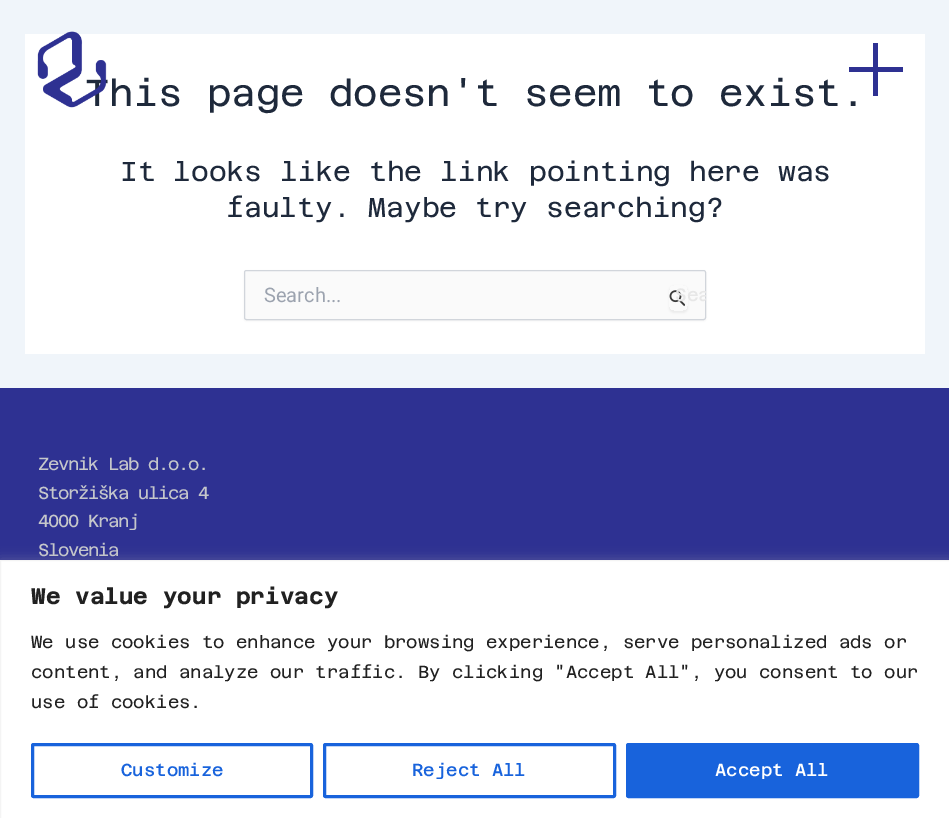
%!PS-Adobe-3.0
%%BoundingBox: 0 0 949 818
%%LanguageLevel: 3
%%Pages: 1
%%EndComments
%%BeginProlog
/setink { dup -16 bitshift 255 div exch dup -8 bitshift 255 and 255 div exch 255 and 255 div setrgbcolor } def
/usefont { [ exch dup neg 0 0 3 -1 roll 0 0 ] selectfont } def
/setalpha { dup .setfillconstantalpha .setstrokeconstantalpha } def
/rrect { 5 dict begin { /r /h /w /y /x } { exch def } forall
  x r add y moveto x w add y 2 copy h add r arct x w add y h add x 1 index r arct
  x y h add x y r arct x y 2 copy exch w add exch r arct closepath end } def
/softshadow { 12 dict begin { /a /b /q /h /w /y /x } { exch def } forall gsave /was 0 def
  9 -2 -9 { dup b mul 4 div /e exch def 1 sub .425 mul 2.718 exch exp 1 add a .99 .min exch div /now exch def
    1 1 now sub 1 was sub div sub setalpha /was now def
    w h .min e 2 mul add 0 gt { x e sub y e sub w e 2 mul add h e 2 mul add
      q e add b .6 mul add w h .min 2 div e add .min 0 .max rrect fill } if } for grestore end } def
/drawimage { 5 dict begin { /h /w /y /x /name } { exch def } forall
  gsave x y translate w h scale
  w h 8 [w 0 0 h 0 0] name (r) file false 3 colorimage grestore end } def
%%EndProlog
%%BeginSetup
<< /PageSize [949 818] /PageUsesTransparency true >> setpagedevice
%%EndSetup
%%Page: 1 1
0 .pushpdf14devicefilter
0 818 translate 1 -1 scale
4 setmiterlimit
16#F0F5FA setink
0 0 949 818 rectfill
16#FFFFFF setink
25 34 900 320 rectfill
/AzeretMono-Regular 37.5 usefont
16#1E293B setink
85 106 moveto (This page doesn't seem to exist.) show
(img1.raw) 37 31 70 77 drawimage
16#2E3192 setink
873 43 5 53 rectfill
849 67 54 5 rectfill
/AzeretMono-Regular 27.35 usefont
16#1E293B setink
120 181 moveto (It looks like the link pointing here was) show
226 217 moveto (faulty. Maybe try searching?) show
16#000000 setink
244 271 462 50 2.5 1 0.05 softshadow
16#FAFAFA setink
244.5 270.5 461 49 2 rrect gsave fill grestore
16#D1D5DB setink
stroke
/Roboto-Regular 20 usefont
16#9CA3AF setink
264 302 moveto (Search...) show
gsave
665 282 moveto 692 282 lineto 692 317 lineto 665 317 lineto closepath 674 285 moveto 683 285 lineto 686 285 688 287 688 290 curveto 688 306 lineto 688 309 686 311 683 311 curveto 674 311 lineto 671 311 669 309 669 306 curveto 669 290 lineto 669 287 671 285 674 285 curveto closepath eoclip newpath
16#000000 setink
669 286 19 27 5 1 0.05 softshadow
grestore
(img2.raw) 669 290 16 17 drawimage
gsave
650 270 56 51 2.5 rrect clip newpath
/AzeretMono-Medium 18 usefont
16#E7E7E7 setink
675 301 moveto (Sea) show
grestore
16#2E3192 setink
0 388 949 172 rectfill
/AzeretMono-Regular 17.5 usefont
16#C5C7CB setink
38 470 moveto -1.4 0 (Zevnik Lab d.o.o.) ashow
38 499 moveto -1.4 0 (Storžiška ulica 4) ashow
38 527 moveto -1.4 0 (4000 Kranj) ashow
38 556 moveto -1.4 0 (Slovenia) ashow
16#ACABAB setink
0 559 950 259 0 6 0.3 softshadow
16#FFFFFF setink
0.5 560.5 moveto 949.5 560.5 lineto 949.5 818.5 lineto 0.5 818.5 lineto closepath gsave fill grestore
16#F4F4F4 setink
stroke
/AzeretMono-Bold 22.5 usefont
16#212121 setink
31 604 moveto (We value your privacy) show
/AzeretMono-Regular 17.5 usefont
[
    [(We use cookies to enhance your browsing experience, serve personalized ads or) 31 648]
    [(content, and analyze our traffic. By clicking "Accept All", you consent to our) 31 678]
    [(use of cookies.) 31 708]
] { aload pop moveto show } forall
16#1863DC setink
3 setlinewidth
32.5 744.5 279 52 1 rrect stroke
/AzeretMono-Medium 17.5 usefont
121 776 moveto (Customize) show
324.5 744.5 290 52 1 rrect stroke
412 776 moveto (Reject All) show
627.5 744.5 290 52 1 rrect gsave fill grestore
stroke
16#FFFFFF setink
715 776 moveto (Accept All) show
.poppdf14devicefilter showpage
%%EOF
